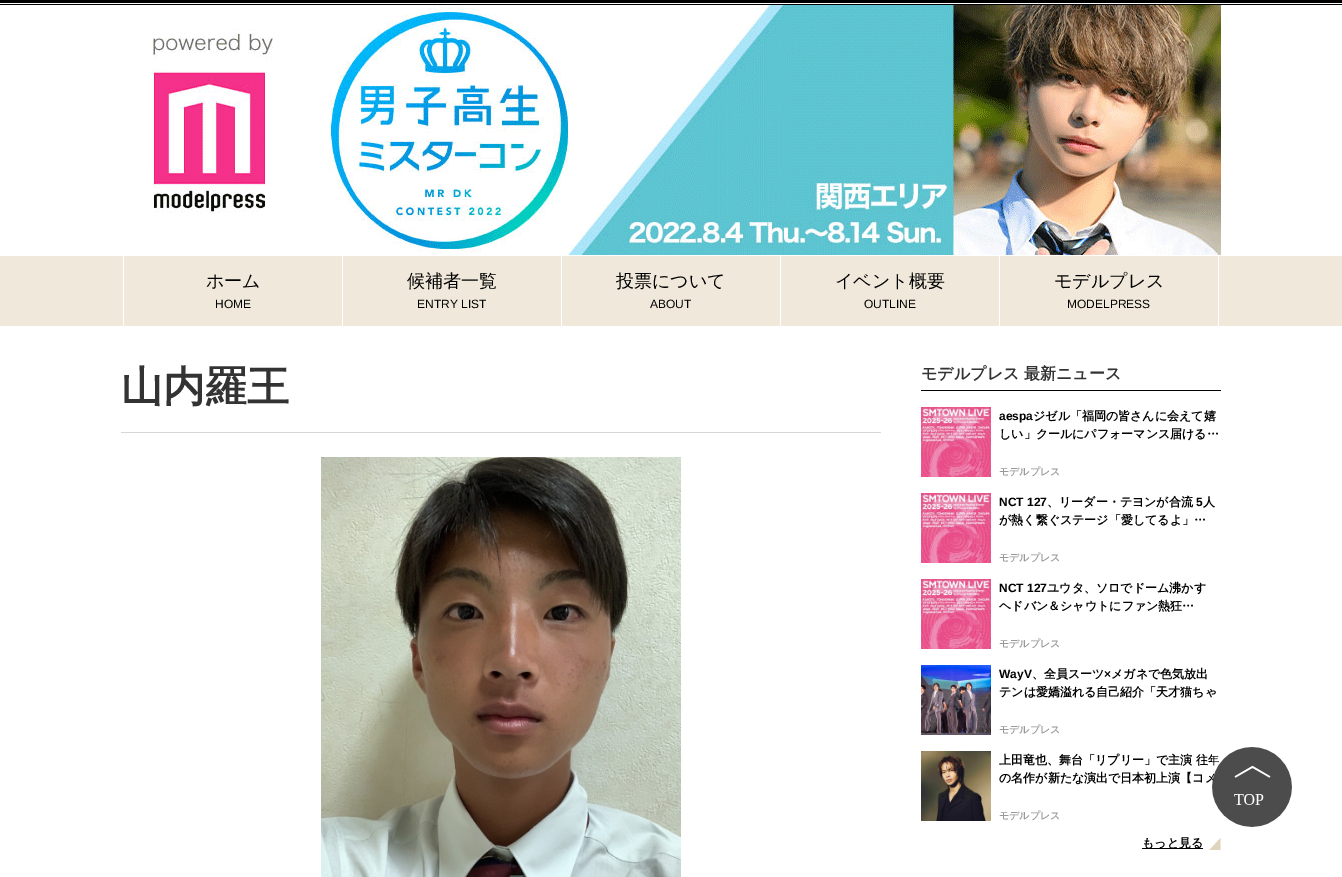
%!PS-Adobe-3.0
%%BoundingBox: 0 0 1342 877
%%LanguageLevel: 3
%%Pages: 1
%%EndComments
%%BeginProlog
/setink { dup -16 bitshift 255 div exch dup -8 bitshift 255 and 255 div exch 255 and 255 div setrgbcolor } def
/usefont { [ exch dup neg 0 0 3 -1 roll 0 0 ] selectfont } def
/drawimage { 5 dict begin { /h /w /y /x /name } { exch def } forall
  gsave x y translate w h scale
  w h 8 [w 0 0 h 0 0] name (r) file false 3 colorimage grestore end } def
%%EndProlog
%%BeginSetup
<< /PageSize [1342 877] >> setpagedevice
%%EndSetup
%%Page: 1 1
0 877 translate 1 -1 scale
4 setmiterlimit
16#FFFFFF setink
0 0 1342 877 rectfill
16#000000 setink
0 0 1342 3 rectfill
0 4 1342 1 rectfill
(img1.raw) 152 5 1069 250 drawimage
16#F0E9DB setink
0 256 1342 70 rectfill
16#FFFFFF setink
123 256 1 70 rectfill
/WenQuanYiZenHei-Medium 18 usefont
16#000000 setink
206 287 moveto (ホーム) show
/LiberationSans-Regular 12 usefont
215 308 moveto (HOME) show
16#FFFFFF setink
342 256 1 70 rectfill
/WenQuanYiZenHei-Medium 18 usefont
16#000000 setink
407 287 moveto (候補者一覧) show
/LiberationSans-Regular 12 usefont
417 308 moveto (ENTRY LIST) show
16#FFFFFF setink
561 256 1 70 rectfill
/WenQuanYiZenHei-Medium 18 usefont
16#000000 setink
616 287 moveto (投票について) show
/LiberationSans-Regular 12 usefont
650 308 moveto (ABOUT) show
16#FFFFFF setink
780 256 1 70 rectfill
/WenQuanYiZenHei-Medium 18 usefont
16#000000 setink
835 287 moveto (イベント概要) show
/LiberationSans-Regular 12 usefont
864 308 moveto (OUTLINE) show
16#FFFFFF setink
1218 256 1 70 rectfill
999 256 1 70 rectfill
/WenQuanYiZenHei-Medium 18 usefont
16#000000 setink
1054 287 moveto (モデルプレス) show
/LiberationSans-Regular 12 usefont
1067 308 moveto (MODELPRESS) show
16#D6D6D6 setink
121 432 760 1 rectfill
/WenQuanYiZenHei-Bold 42 usefont
16#333333 setink
121 401 moveto (山内羅王) show
(img2.raw) 321 457 360 420 drawimage
16#000000 setink
921 390 300 1 rectfill
/WenQuanYiZenHei-Bold 16 usefont
16#333333 setink
921 379 moveto (モデルプレス 最新ニュース) show
(img3.raw) 921 407 70 70 drawimage
/LiberationSans-Bold 12 usefont
16#000000 setink
999 420 moveto (aespa) show
/WenQuanYiZenHei-Bold 12 usefont
1033 420 moveto (ジゼル「福岡の皆さんに会えて嬉) show
999 438 moveto (しい」クールにパフォーマンス届ける…) show
/WenQuanYiZenHei-Bold 10 usefont
16#999999 setink
999 475 moveto (モデルプレス) show
(img3.raw) 921 493 70 70 drawimage
/LiberationSans-Bold 12 usefont
16#000000 setink
999 506 moveto (NCT 127) show
/WenQuanYiZenHei-Bold 12 usefont
1047 506 moveto (、リーダー・テヨンが合流) show
/LiberationSans-Bold 12 usefont
1196 506 moveto (5) show
/WenQuanYiZenHei-Bold 12 usefont
1203 506 moveto (人) show
999 524 moveto (が熱く繋ぐステージ「愛してるよ」…) show
/WenQuanYiZenHei-Bold 10 usefont
16#999999 setink
999 561 moveto (モデルプレス) show
(img3.raw) 921 579 70 70 drawimage
/LiberationSans-Bold 12 usefont
16#000000 setink
999 592 moveto (NCT 127) show
/WenQuanYiZenHei-Bold 12 usefont
1047 592 moveto (ユウタ、ソロでドーム沸かす) show
999 610 moveto (ヘドバン＆シャウトにファン熱狂…) show
/WenQuanYiZenHei-Bold 10 usefont
16#999999 setink
999 647 moveto (モデルプレス) show
(img4.raw) 921 665 70 70 drawimage
/LiberationSans-Bold 12 usefont
16#000000 setink
999 678 moveto (WayV) show
/WenQuanYiZenHei-Bold 12 usefont
1032 678 moveto (、全員スーツ) show
/LiberationSans-Bold 12 usefont
1104 678 moveto (×) show
/WenQuanYiZenHei-Bold 12 usefont
1111 678 moveto (メガネで色気放出) show
999 696 moveto (テンは愛嬌溢れる自己紹介「天才猫ちゃ) show
/WenQuanYiZenHei-Bold 10 usefont
16#999999 setink
999 733 moveto (モデルプレス) show
(img5.raw) 921 751 70 70 drawimage
/WenQuanYiZenHei-Bold 12 usefont
16#000000 setink
999 764 moveto (上田竜也、舞台「リプリー」で主演 往年) show
999 782 moveto (の名作が新たな演出で日本初上演【コメ) show
/WenQuanYiZenHei-Bold 10 usefont
16#999999 setink
999 819 moveto (モデルプレス) show
16#000000 setink
1142 848 61 1 rectfill
/WenQuanYiZenHei-Bold 12 usefont
1142 847 moveto (もっと見る) show
16#DFD4BE setink
1220.5 838 moveto 1220.5 850 lineto 1209.5 850 lineto closepath fill
(img6.raw) 1212 747 80 80 drawimage
showpage
%%EOF
